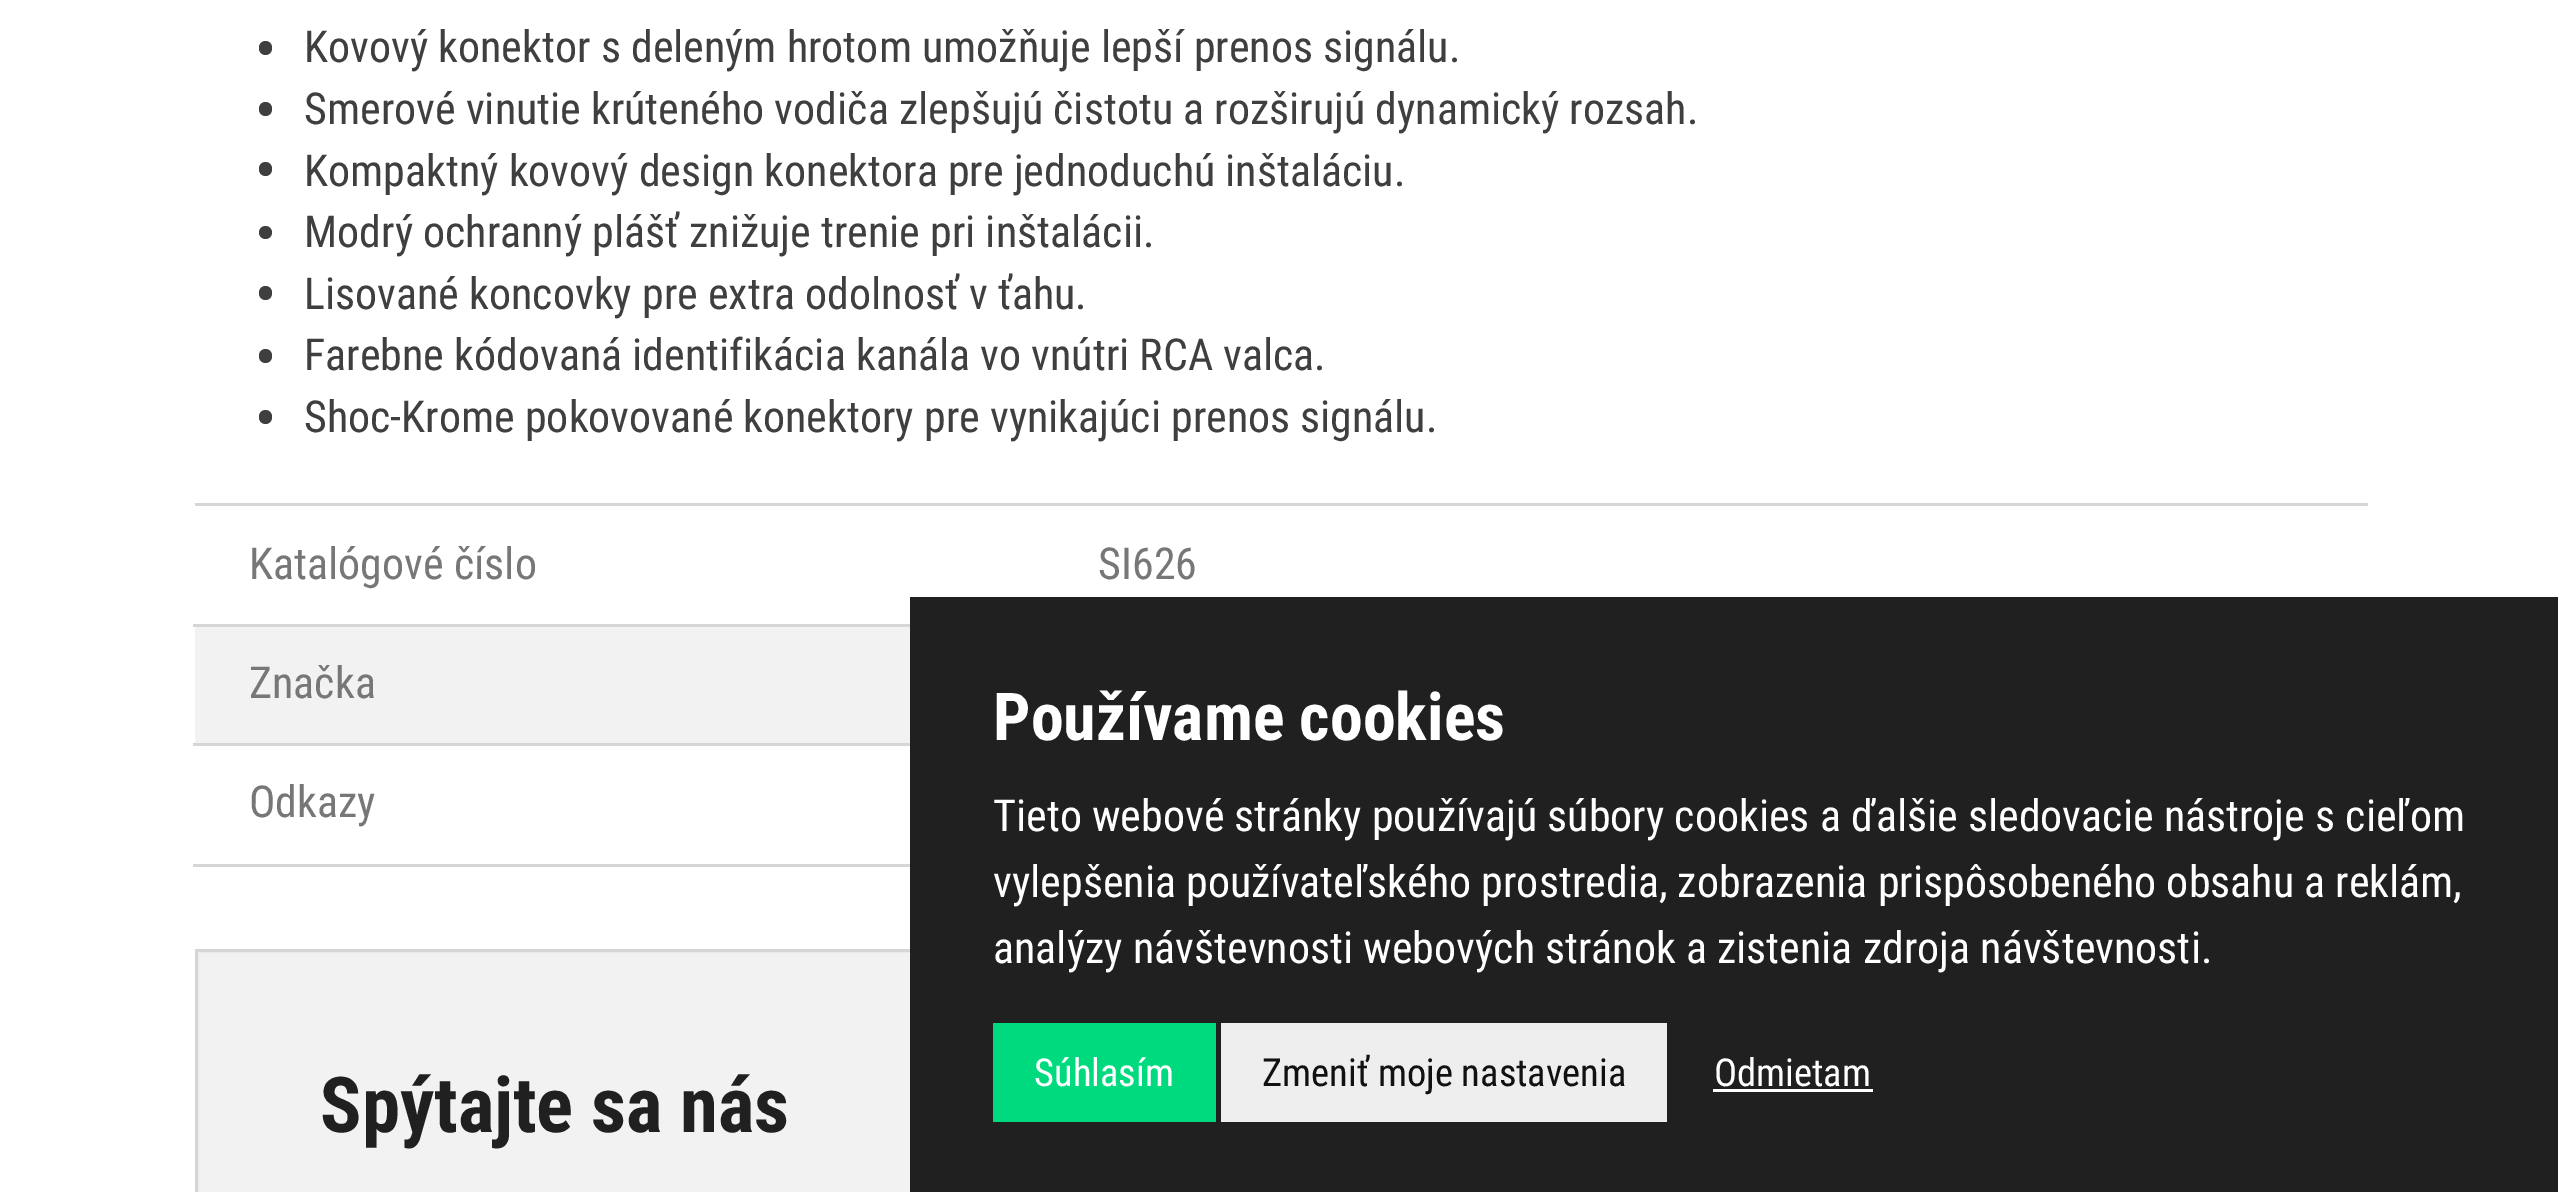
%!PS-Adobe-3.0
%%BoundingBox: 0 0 2558 1192
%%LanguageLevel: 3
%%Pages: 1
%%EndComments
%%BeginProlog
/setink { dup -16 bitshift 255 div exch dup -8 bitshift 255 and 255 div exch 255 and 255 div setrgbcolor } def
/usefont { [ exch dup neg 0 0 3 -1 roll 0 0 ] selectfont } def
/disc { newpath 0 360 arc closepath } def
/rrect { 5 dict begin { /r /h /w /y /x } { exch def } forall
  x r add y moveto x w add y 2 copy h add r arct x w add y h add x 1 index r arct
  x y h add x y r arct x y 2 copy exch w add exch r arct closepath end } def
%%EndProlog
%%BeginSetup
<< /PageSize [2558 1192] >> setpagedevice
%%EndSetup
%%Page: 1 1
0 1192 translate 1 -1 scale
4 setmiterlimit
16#FFFFFF setink
0 0 2558 1192 rectfill
16#3F3F3F setink
259 41 13 14 6.5 rrect fill
/RobotoCondensed-Regular 44 usefont
304 62 moveto (Kovový konektor s deleným hrotom umožňuje lepší prenos signálu.) show
259 102 13 14 6.5 rrect fill
304 124 moveto (Smerové vinutie krúteného vodiča zlepšujú čistotu a rozširujú dynamický rozsah.) show
259 162 13 14 6.5 rrect fill
304 186 moveto (Kompaktný kovový design konektora pre jednoduchú inštaláciu.) show
265.5 232.5 6.5 disc fill
304 247 moveto (Modrý ochranný plášť znižuje trenie pri inštalácii.) show
259 286 13 14 6.5 rrect fill
304 309 moveto (Lisované koncovky pre extra odolnosť v ťahu.) show
259 349 13 14 6.5 rrect fill
304 370 moveto (Farebne kódovaná identifikácia kanála vo vnútri RCA valca.) show
259 410 13 14 6.5 rrect fill
304 432 moveto (Shoc-Krome pokovované konektory pre vynikajúci prenos signálu.) show
16#D6D6D6 setink
195 503 2173 3 rectfill
193 624 717 3 rectfill
16#777777 setink
249 579 moveto (Katalógové číslo) show
1098 579 moveto (SI626) show
16#F2F2F2 setink
195 627 715 116 rectfill
16#D6D6D6 setink
193 743 717 3 rectfill
16#777777 setink
249 698 moveto (Značka) show
16#D6D6D6 setink
193 864 717 3 rectfill
16#777777 setink
249 817 moveto (Odkazy) show
16#F2F2F2 setink
198 952 712 240 rectfill
16#D6D6D6 setink
3 setlinewidth
196.5 950.5 2170 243 rectstroke
/RobotoCondensed-Bold 77 usefont
16#202020 setink
320 1132 moveto (Spýtajte sa nás) show
910 597 1648 595 rectfill
/RobotoCondensed-Bold 66 usefont
16#FFFFFF setink
993 740 moveto (Používame cookies) show
/RobotoCondensed-Regular 44 usefont
[
    [(Tieto webové stránky používajú súbory cookies a ďalšie sledovacie nástroje s cieľom) 993 831]
    [(vylepšenia používateľského prostredia, zobrazenia prispôsobeného obsahu a reklám,) 993 897]
    [(analýzy návštevnosti webových stránok a zistenia zdroja návštevnosti.) 993 963]
] { aload pop moveto show } forall
16#00DA7E setink
993 1023 223 99 rectfill
/RobotoCondensed-Regular 38.5 usefont
16#FFFFFF setink
1034 1086 moveto (Súhlasím) show
16#EEEEEE setink
1221 1023 446 99 rectfill
16#111111 setink
1262 1086 moveto (Zmeniť moje nastavenia) show
16#FFFFFF setink
1714 1086 moveto (Odmietam) show
1713 1089 160 3 rectfill
showpage
%%EOF
